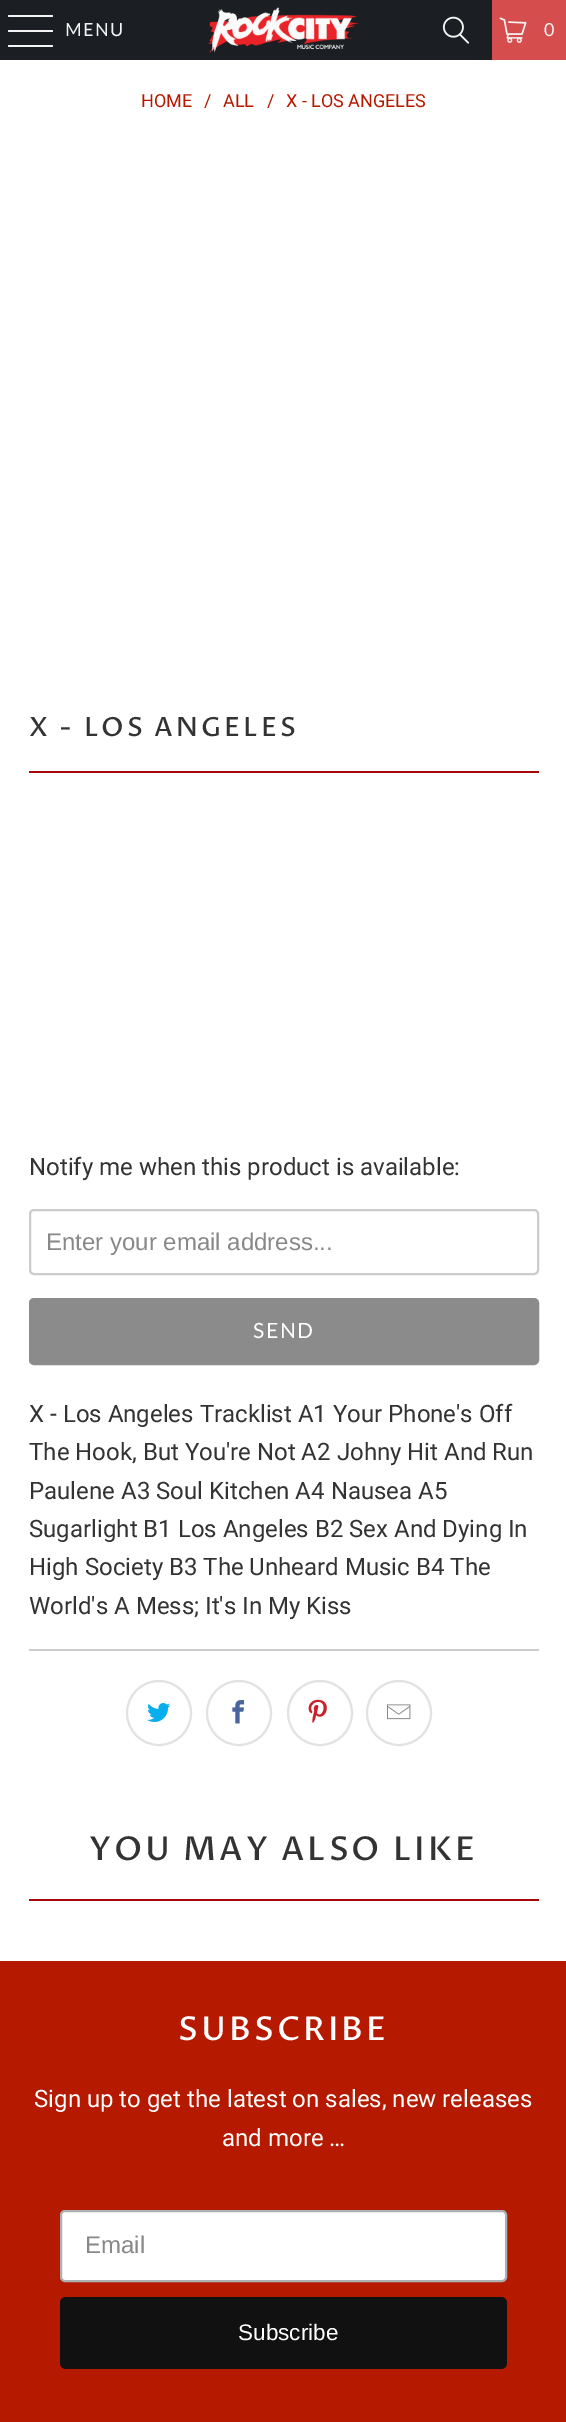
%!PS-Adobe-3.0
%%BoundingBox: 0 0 566 2422
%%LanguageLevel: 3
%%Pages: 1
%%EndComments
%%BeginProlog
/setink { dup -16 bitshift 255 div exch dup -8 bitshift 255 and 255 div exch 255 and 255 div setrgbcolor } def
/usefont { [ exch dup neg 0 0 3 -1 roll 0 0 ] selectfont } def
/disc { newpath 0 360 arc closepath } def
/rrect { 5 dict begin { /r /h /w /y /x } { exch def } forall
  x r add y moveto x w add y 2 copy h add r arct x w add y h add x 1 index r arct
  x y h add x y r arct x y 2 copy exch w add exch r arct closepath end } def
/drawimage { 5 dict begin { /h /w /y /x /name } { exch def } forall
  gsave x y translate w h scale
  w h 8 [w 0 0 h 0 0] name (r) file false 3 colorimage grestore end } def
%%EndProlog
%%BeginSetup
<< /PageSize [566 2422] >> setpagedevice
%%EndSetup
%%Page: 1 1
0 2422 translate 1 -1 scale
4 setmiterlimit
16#FFFFFF setink
0 0 566 2422 rectfill
16#1B1F23 setink
0 0 492 60 rectfill
16#F4F4F4 setink
8 15 45 2 1 rrect fill
8 30 45 2 1 rrect fill
8 45 45 2 1 rrect fill
/Lato-Regular 18 usefont
65 36 moveto 1.5 0 (MENU) ashow
(img1.raw) 208 7 151 46 drawimage
(img2.raw) 442 16 28 28 drawimage
16#D54D4D setink
492 0 74 60 rectfill
(img3.raw) 499 17 28 26 drawimage
16#F4F4F4 setink
544 36 moveto 1.5 0 (0) ashow
/Roboto-Regular 18 usefont
16#B51A00 setink
[
    [(HOME) 141 107]
    [(/) 204 107]
    [(ALL) 223 107]
    [(/) 267 107]
    [(X - LOS ANGELES) 286 107]
] { aload pop moveto show } forall
/ProzaLibre-Medium 26.4 usefont
16#333333 setink
29 736 moveto 3 0 (X - LOS ANGELES) ashow
16#A70909 setink
29 771 510 2 rectfill
/Roboto-Regular 24 usefont
16#333333 setink
29 1175 moveto (Notify me when this product is available:) show
16#CCCCCC setink
2 setlinewidth
30 1210 508 64 4 rrect stroke
/LiberationSans-Regular 24 usefont
16#888888 setink
46 1250 moveto (Enter your email address...) show
16#8C8B8B setink
30 1299 508 65 4 rrect gsave fill grestore
stroke
/Lato-Regular 21 usefont
16#FFFFFF setink
253 1338 moveto 1.5 0 (SEND) ashow
/Roboto-Regular 24 usefont
16#333333 setink
[
    [(X - Los Angeles Tracklist A1 Your Phone's Off) 29 1422]
    [(The Hook, But You're Not A2 Johny Hit And Run) 29 1460]
    [(Paulene A3 Soul Kitchen A4 Nausea A5) 29 1499]
    [(Sugarlight B1 Los Angeles B2 Sex And Dying In) 29 1537]
    [(High Society B3 The Unheard Music B4 The) 29 1575]
    [(World's A Mess; It's In My Kiss) 29 1614]
] { aload pop moveto show } forall
16#CCCCCC setink
29 1649 510 2 rectfill
16#E2E2E2 setink
159 1713 32 disc stroke
(img4.raw) 147 1703 24 19 drawimage
239 1713 32 disc stroke
(img5.raw) 232 1700 13 24 drawimage
320 1713 32 disc stroke
(img6.raw) 308 1699 19 24 drawimage
399 1713 32 disc stroke
(img7.raw) 387 1704 24 16 drawimage
/ProzaLibre-Medium 33 usefont
16#333333 setink
89 1860 moveto 3 0 (YOU MAY ALSO LIKE) ashow
16#A70909 setink
29 1899 510 2 rectfill
16#B51A00 setink
0 1961 566 461 rectfill
16#FFFFFF setink
178 2040 moveto 3 0 (SUBSCRIBE) ashow
/Roboto-Regular 24 usefont
34 2107 moveto (Sign up to get the latest on sales, new releases) show
222 2146 moveto (and more …) show
61 2211 445 70 4 rrect gsave fill grestore
16#ABB0B2 setink
stroke
/LiberationSans-Regular 24 usefont
16#888888 setink
85 2253 moveto (Email) show
16#111111 setink
60 2297 447 72 6 rrect fill
/LiberationSans-Regular 22.5 usefont
16#FFFFFF setink
238 2340 moveto (Subscribe) show
showpage
%%EOF
